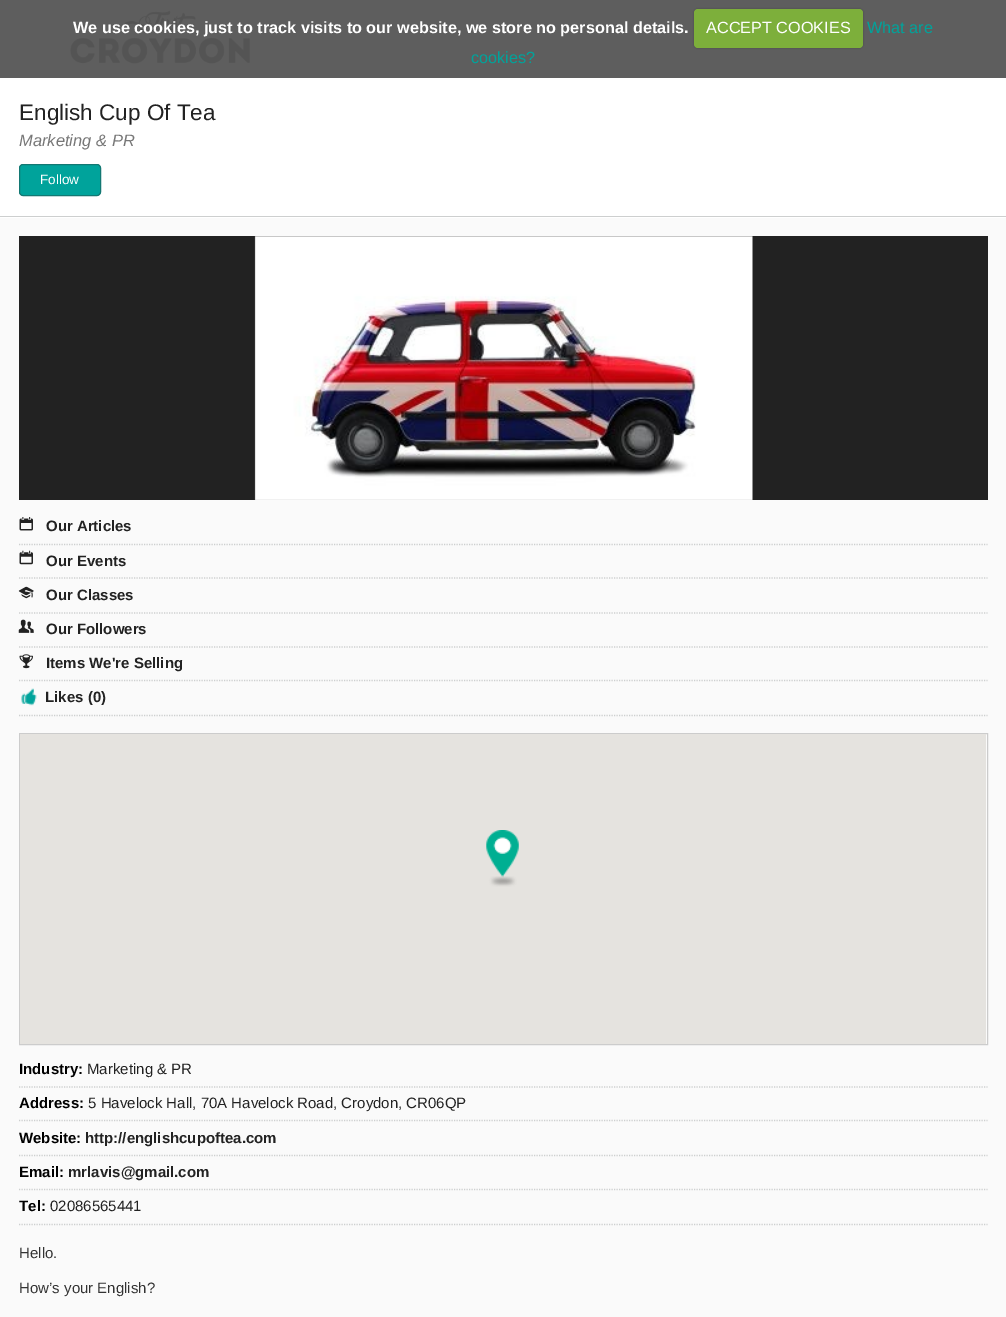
%!PS-Adobe-3.0
%%BoundingBox: 0 0 1006 1317
%%LanguageLevel: 3
%%Pages: 1
%%EndComments
%%BeginProlog
/setink { dup -16 bitshift 255 div exch dup -8 bitshift 255 and 255 div exch 255 and 255 div setrgbcolor } def
/usefont { [ exch dup neg 0 0 3 -1 roll 0 0 ] selectfont } def
/setalpha { dup .setfillconstantalpha .setstrokeconstantalpha } def
/rrect { 5 dict begin { /r /h /w /y /x } { exch def } forall
  x r add y moveto x w add y 2 copy h add r arct x w add y h add x 1 index r arct
  x y h add x y r arct x y 2 copy exch w add exch r arct closepath end } def
/softshadow { 12 dict begin { /a /b /q /h /w /y /x } { exch def } forall gsave /was 0 def
  9 -2 -9 { dup b mul 4 div /e exch def 1 sub .425 mul 2.718 exch exp 1 add a .99 .min exch div /now exch def
    1 1 now sub 1 was sub div sub setalpha /was now def
    w h .min e 2 mul add 0 gt { x e sub y e sub w e 2 mul add h e 2 mul add
      q e add b .6 mul add w h .min 2 div e add .min 0 .max rrect fill } if } for grestore end } def
/drawimage { 5 dict begin { /h /w /y /x /name } { exch def } forall
  gsave x y translate w h scale
  w h 8 [w 0 0 h 0 0] name (r) file false 3 colorimage grestore end } def
%%EndProlog
%%BeginSetup
<< /PageSize [1006 1317] /PageUsesTransparency true >> setpagedevice
%%EndSetup
%%Page: 1 1
0 .pushpdf14devicefilter
0 1317 translate 1 -1 scale
4 setmiterlimit
16#FFFFFF setink
0 0 1006 1317 rectfill
16#5E5E5E setink
0 0 1006 78 rectfill
(img1.raw) 69 10 181 54 drawimage
/LiberationSans-Bold 16.25 usefont
16#FFFFFF setink
73 33 moveto (We use cookies, just to track visits to our website, we store no personal details.) show
16#000000 setink
694 9 169 39 4 1 0.25 softshadow
16#7DAF3B setink
694 9 169 39 4 rrect fill
/LiberationSans-Regular 16.25 usefont
16#FFFFFF setink
706 33 moveto (ACCEPT COOKIES) show
16#00A39B setink
867 33 moveto (What are) show
471 63 moveto (cookies?) show
16#CDCFCF setink
0 216 1006 1 rectfill
/LiberationSans-Regular 22.5 usefont
16#222222 setink
19 120 moveto (English Cup Of Tea) show
/LiberationSans-Italic 16.5 usefont
16#777777 setink
19 146 moveto (Marketing & PR) show
16#00A39B setink
19.5 164.5 81 31 3.5 rrect gsave fill grestore
16#137873 setink
stroke
/LiberationSans-Regular 13.5 usefont
16#FFFFFF setink
40 184 moveto (Follow) show
16#FAFAFA setink
0 218 1006 1099 rectfill
16#222222 setink
19 236 969 264 rectfill
(img2.raw) 254 236 499 264 drawimage
16#CDCFCF setink
1.2 setlinewidth
[1.25 1.25] 0 setdash
19 544.5 moveto 987.5 544.5 lineto stroke
(img3.raw) 19 517 14 14 drawimage
/LiberationSans-Bold 15 usefont
16#222222 setink
46 531 moveto (Our Articles) show
16#CDCFCF setink
19 578 moveto 987.5 578 lineto stroke
(img4.raw) 19 550 14 15 drawimage
16#222222 setink
46 566 moveto (Our Events) show
16#CDCFCF setink
19 613 moveto 987.5 613 lineto stroke
(img5.raw) 18 586 16 13 drawimage
16#222222 setink
46 600 moveto (Our Classes) show
16#CDCFCF setink
19 647 moveto 987.5 647 lineto stroke
(img6.raw) 18 619 16 14 drawimage
16#222222 setink
46 634 moveto (Our Followers) show
16#CDCFCF setink
19 680.5 moveto 987.5 680.5 lineto stroke
(img7.raw) 19 654 14 15 drawimage
16#222222 setink
46 668 moveto (Items We're Selling) show
16#CDCFCF setink
19 715.5 moveto 987.5 715.5 lineto stroke
(img8.raw) 21 688 16 18 drawimage
16#222222 setink
45 702 moveto (Likes \(0\)) show
16#CCCCCC setink
1 setlinewidth
[] 0 setdash
19.5 733.5 968 311 rectstroke
16#E5E3DF setink
20 734 966 310 rectfill
(img9.raw) 486 830 33 57 drawimage
16#CDCFCF setink
1.2 setlinewidth
[1.25 1.25] 0 setdash
19 1087 moveto 987.5 1087 lineto stroke
16#000000 setink
19 1074 moveto (Industry:) show
/LiberationSans-Regular 15 usefont
16#222222 setink
87 1074 moveto (Marketing & PR) show
16#CDCFCF setink
19 1120.5 moveto 987.5 1120.5 lineto stroke
/LiberationSans-Bold 15 usefont
16#000000 setink
19 1108 moveto (Address:) show
/LiberationSans-Regular 15 usefont
16#222222 setink
88 1108 moveto (5 Havelock Hall, 70A Havelock Road, Croydon, CR06QP) show
16#CDCFCF setink
19 1155.5 moveto 987.5 1155.5 lineto stroke
/LiberationSans-Bold 15 usefont
16#000000 setink
19 1143 moveto (Website:) show
16#222222 setink
85 1143 moveto (http://englishcupoftea.com) show
16#CDCFCF setink
19 1189.5 moveto 987.5 1189.5 lineto stroke
16#000000 setink
19 1177 moveto (Email:) show
16#222222 setink
68 1177 moveto (mrlavis@gmail.com) show
16#CDCFCF setink
19 1224.5 moveto 987.5 1224.5 lineto stroke
16#000000 setink
19 1211 moveto (Tel:) show
/LiberationSans-Regular 15 usefont
16#222222 setink
50 1211 moveto (02086565441) show
16#333333 setink
19 1258 moveto (Hello.) show
19 1293 moveto (How’s your English?) show
.poppdf14devicefilter showpage
%%EOF
